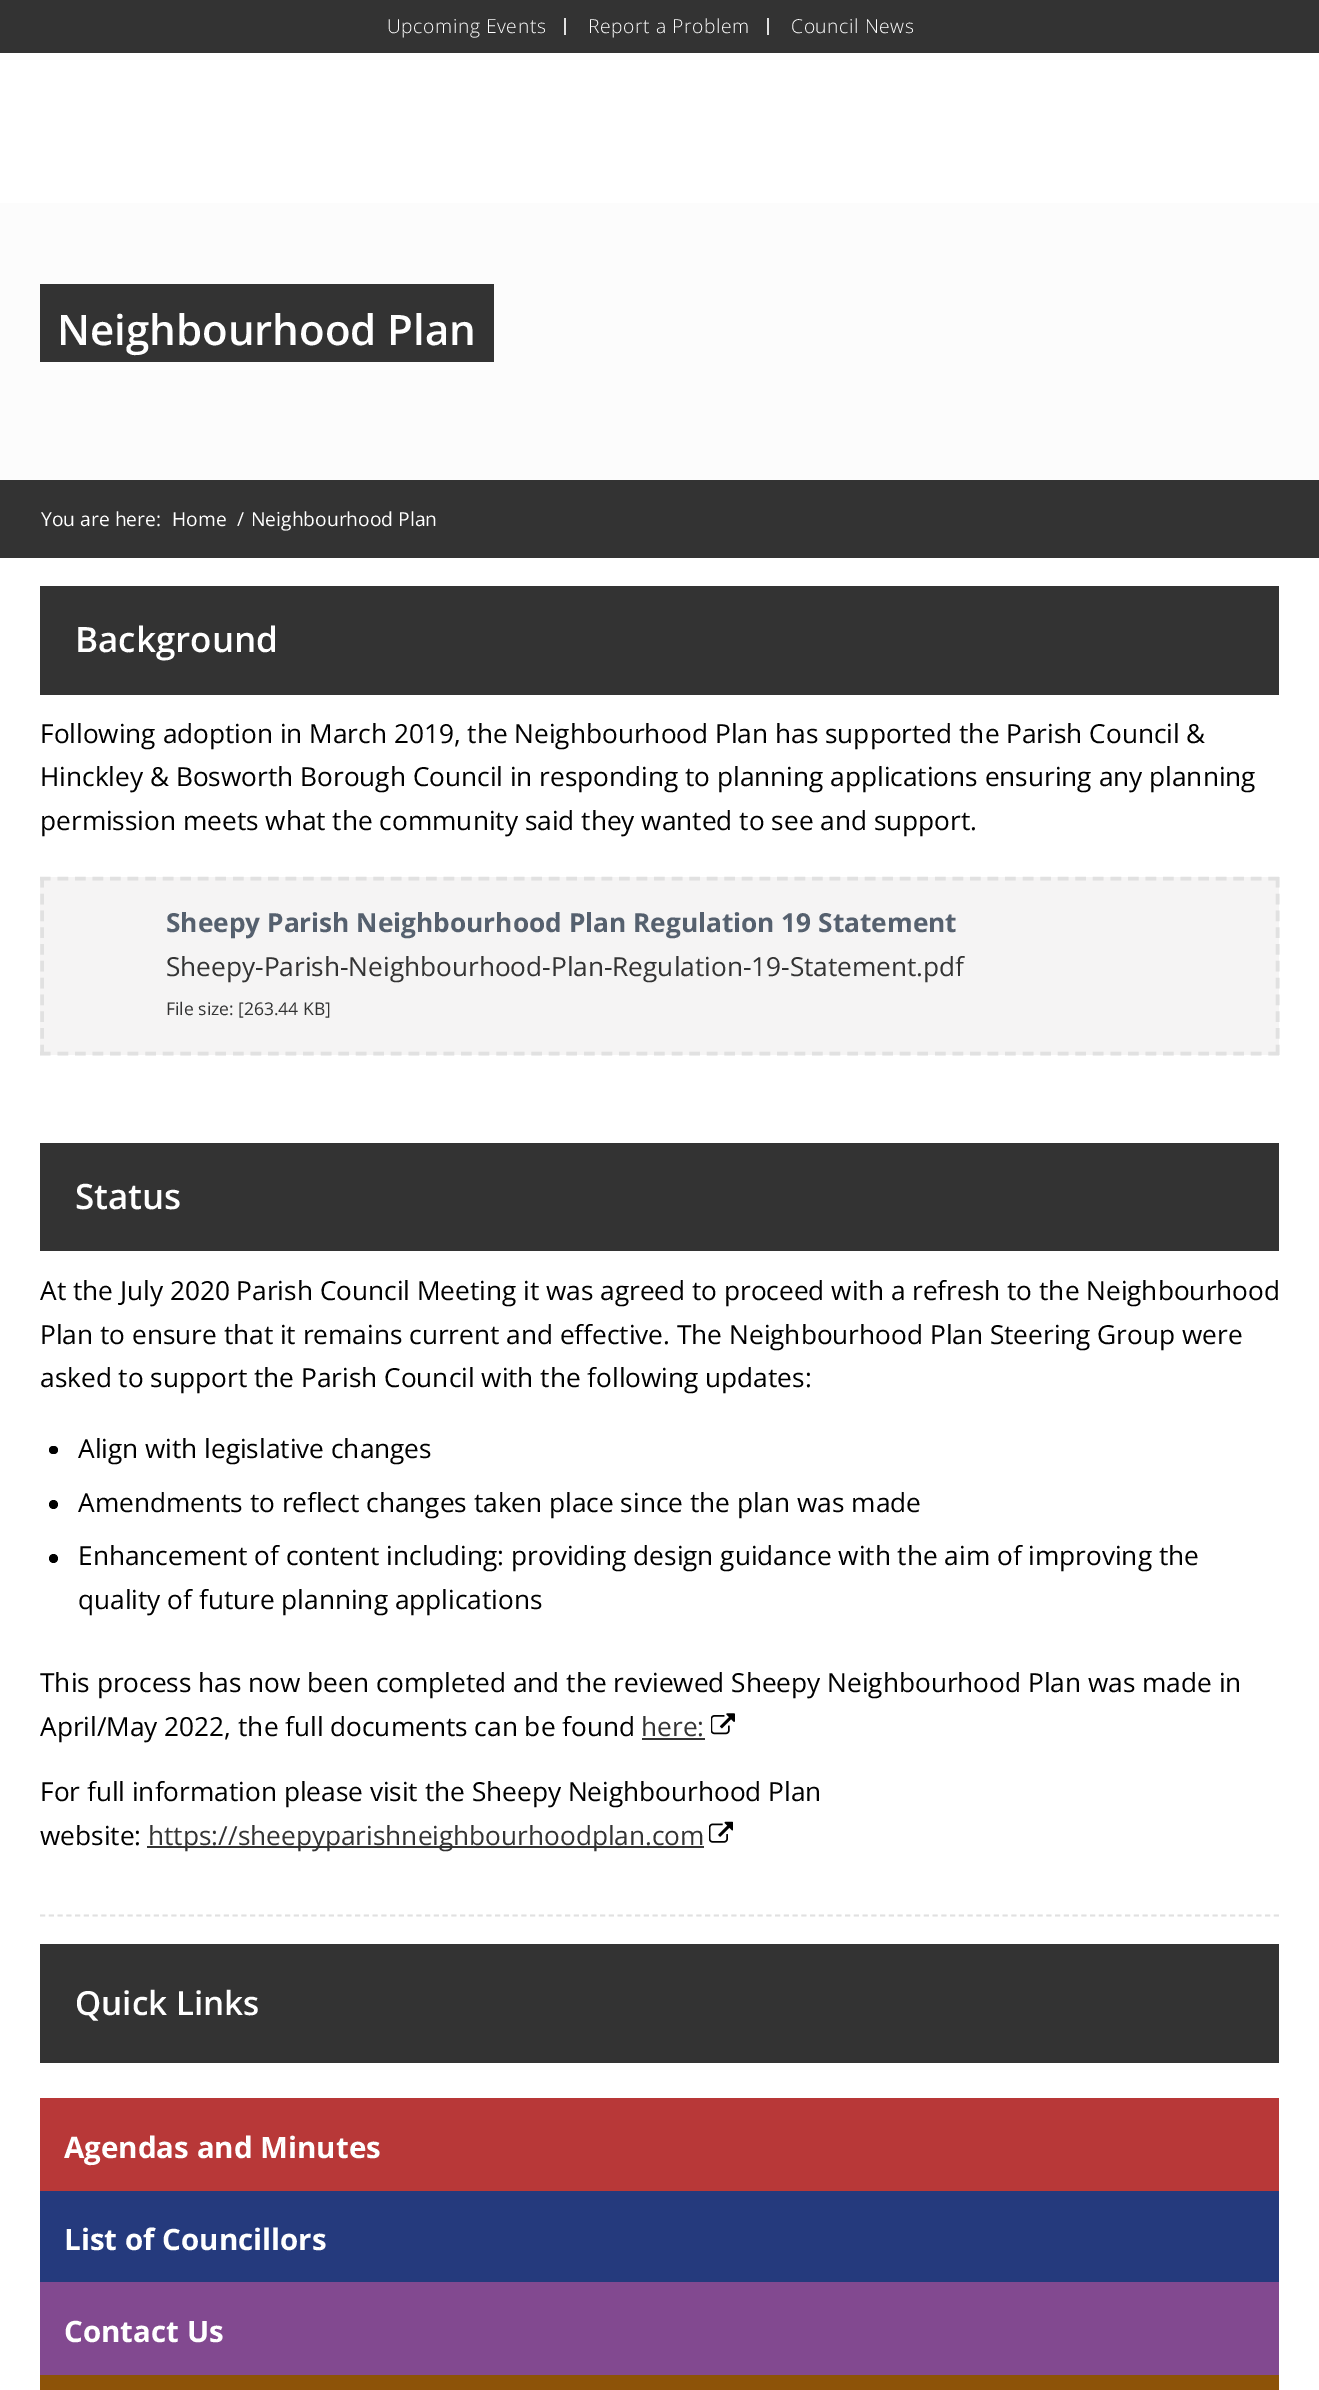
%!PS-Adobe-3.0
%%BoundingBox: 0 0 1319 2390
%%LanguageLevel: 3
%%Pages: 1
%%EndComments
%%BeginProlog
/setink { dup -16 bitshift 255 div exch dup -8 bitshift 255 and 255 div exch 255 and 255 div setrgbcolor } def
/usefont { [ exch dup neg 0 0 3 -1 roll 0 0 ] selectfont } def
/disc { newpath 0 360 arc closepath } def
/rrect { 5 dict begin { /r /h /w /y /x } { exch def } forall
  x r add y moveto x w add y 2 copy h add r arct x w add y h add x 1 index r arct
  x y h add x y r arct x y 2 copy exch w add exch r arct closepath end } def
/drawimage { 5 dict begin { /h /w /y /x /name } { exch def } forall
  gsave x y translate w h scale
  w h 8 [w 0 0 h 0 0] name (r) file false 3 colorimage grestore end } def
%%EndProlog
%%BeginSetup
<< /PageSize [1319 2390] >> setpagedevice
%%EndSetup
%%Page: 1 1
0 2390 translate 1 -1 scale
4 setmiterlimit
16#333333 setink
0 0 1319 2390 rectfill
16#E1E1E1 setink
564 18 2 17 rectfill
/OpenSans-Light 19.25 usefont
16#FFFFFF setink
387 33 moveto 0.6 0 (Upcoming Events) ashow
16#E1E1E1 setink
767 18 2 17 rectfill
16#FFFFFF setink
588 33 moveto 0.6 0 (Report a Problem) ashow
791 33 moveto 0.6 0 (Council News) ashow
[
    [0 53 1319 150 16#FFFFFF]
    [0 558 1319 1832 16#FFFFFF]
    [0 203 1319 277 16#FCFCFC]
    [40 284 454 78 16#333333]
] { aload pop setink rectfill } forall
/OpenSans-SemiBold 42 usefont
16#FFFFFF setink
57 345 moveto (Neighbourhood Plan) show
/OpenSans-Regular 19.25 usefont
[
    [(You are here:) 41 526]
    [(Home) 172 526]
    [(/) 237 526]
    [(Neighbourhood Plan) 251 526]
] { aload pop moveto show } forall
16#333333 setink
40 586 1239 109 rectfill
/OpenSans-SemiBold 35 usefont
16#FFFFFF setink
75 652 moveto (Background) show
/OpenSans-Regular 26.25 usefont
16#000000 setink
[
    [(Following adoption in March 2019, the Neighbourhood Plan has supported the Parish Council &) 40 743]
    [(Hinckley & Bosworth Borough Council in responding to planning applications ensuring any planning) 40 786]
    [(permission meets what the community said they wanted to see and support.) 40 830]
] { aload pop moveto show } forall
16#F5F4F4 setink
40 877 1239 178 rectfill
16#E1E1E1 setink
3.5 setlinewidth
[10.5 7.05] 0 setdash
40 878.5 moveto 1279 878.5 lineto stroke
[10.5 6.3] 0 setdash
1277.5 877 moveto 1277.5 1055 lineto stroke
[10.5 7.05] 0 setdash
40 1053.5 moveto 1279 1053.5 lineto stroke
[10.5 6.3] 0 setdash
42 877 moveto 42 1055 lineto stroke
/OpenSans-Bold 26.25 usefont
16#55606E setink
166 932 moveto (Sheepy Parish Neighbourhood Plan Regulation 19 Statement) show
/OpenSans-Regular 26.25 usefont
16#333333 setink
166 976 moveto (Sheepy-Parish-Neighbourhood-Plan-Regulation-19-Statement.pdf) show
/OpenSans-Regular 17.5 usefont
166 1015 moveto (File size: [263.44 KB]) show
40 1143 1239 108 rectfill
/OpenSans-SemiBold 35 usefont
16#FFFFFF setink
75 1209 moveto (Status) show
/OpenSans-Regular 26.25 usefont
16#000000 setink
[
    [(At the July 2020 Parish Council Meeting it was agreed to proceed with a refresh to the Neighbourhood) 40 1300]
    [(Plan to ensure that it remains current and effective. The Neighbourhood Plan Steering Group were) 40 1344]
    [(asked to support the Parish Council with the following updates:) 40 1387]
] { aload pop moveto show } forall
49 1446 9 8 4 rrect fill
78 1458 moveto (Align with legislative changes) show
53.5 1504.5 4.5 disc fill
78 1512 moveto (Amendments to reflect changes taken place since the plan was made) show
53.5 1558.5 4.5 disc fill
[
    [(Enhancement of content including: providing design guidance with the aim of improving the) 78 1565]
    [(quality of future planning applications) 78 1609]
    [(This process has now been completed and the reviewed Sheepy Neighbourhood Plan was made in) 40 1692]
    [(April/May 2022, the full documents can be found) 40 1736]
] { aload pop moveto show } forall
16#333333 setink
641 1736 moveto (here:) show
642 1738 63 2 rectfill
(img1.raw) 711 1713 24 22 drawimage
16#000000 setink
40 1801 moveto (For full information please visit the Sheepy Neighbourhood Plan) show
40 1845 moveto (website:) show
16#333333 setink
147 1846 557 2 rectfill
148 1845 moveto (https://sheepyparishneighbourhoodplan.com) show
(img2.raw) 709 1821 24 22 drawimage
16#E1E1E1 setink
1.8 setlinewidth
[5.25 3.5] 0 setdash
40 1915.5 moveto 1279 1915.5 lineto stroke
16#333333 setink
40 1944 1239 119 rectfill
/OpenSans-SemiBold 33.25 usefont
16#FFFFFF setink
75 2015 moveto (Quick Links) show
16#B83838 setink
40 2098 1239 93 rectfill
/OpenSans-Bold 29.5 usefont
16#FFFFFF setink
64 2158 moveto (Agendas and Minutes) show
16#253A7D setink
40 2191 1239 91 rectfill
16#FFFFFF setink
64 2250 moveto (List of Councillors) show
16#824990 setink
40 2282 1239 93 rectfill
16#FFFFFF setink
64 2342 moveto (Contact Us) show
16#8D5308 setink
40 2375 1239 15 rectfill
showpage
%%EOF
